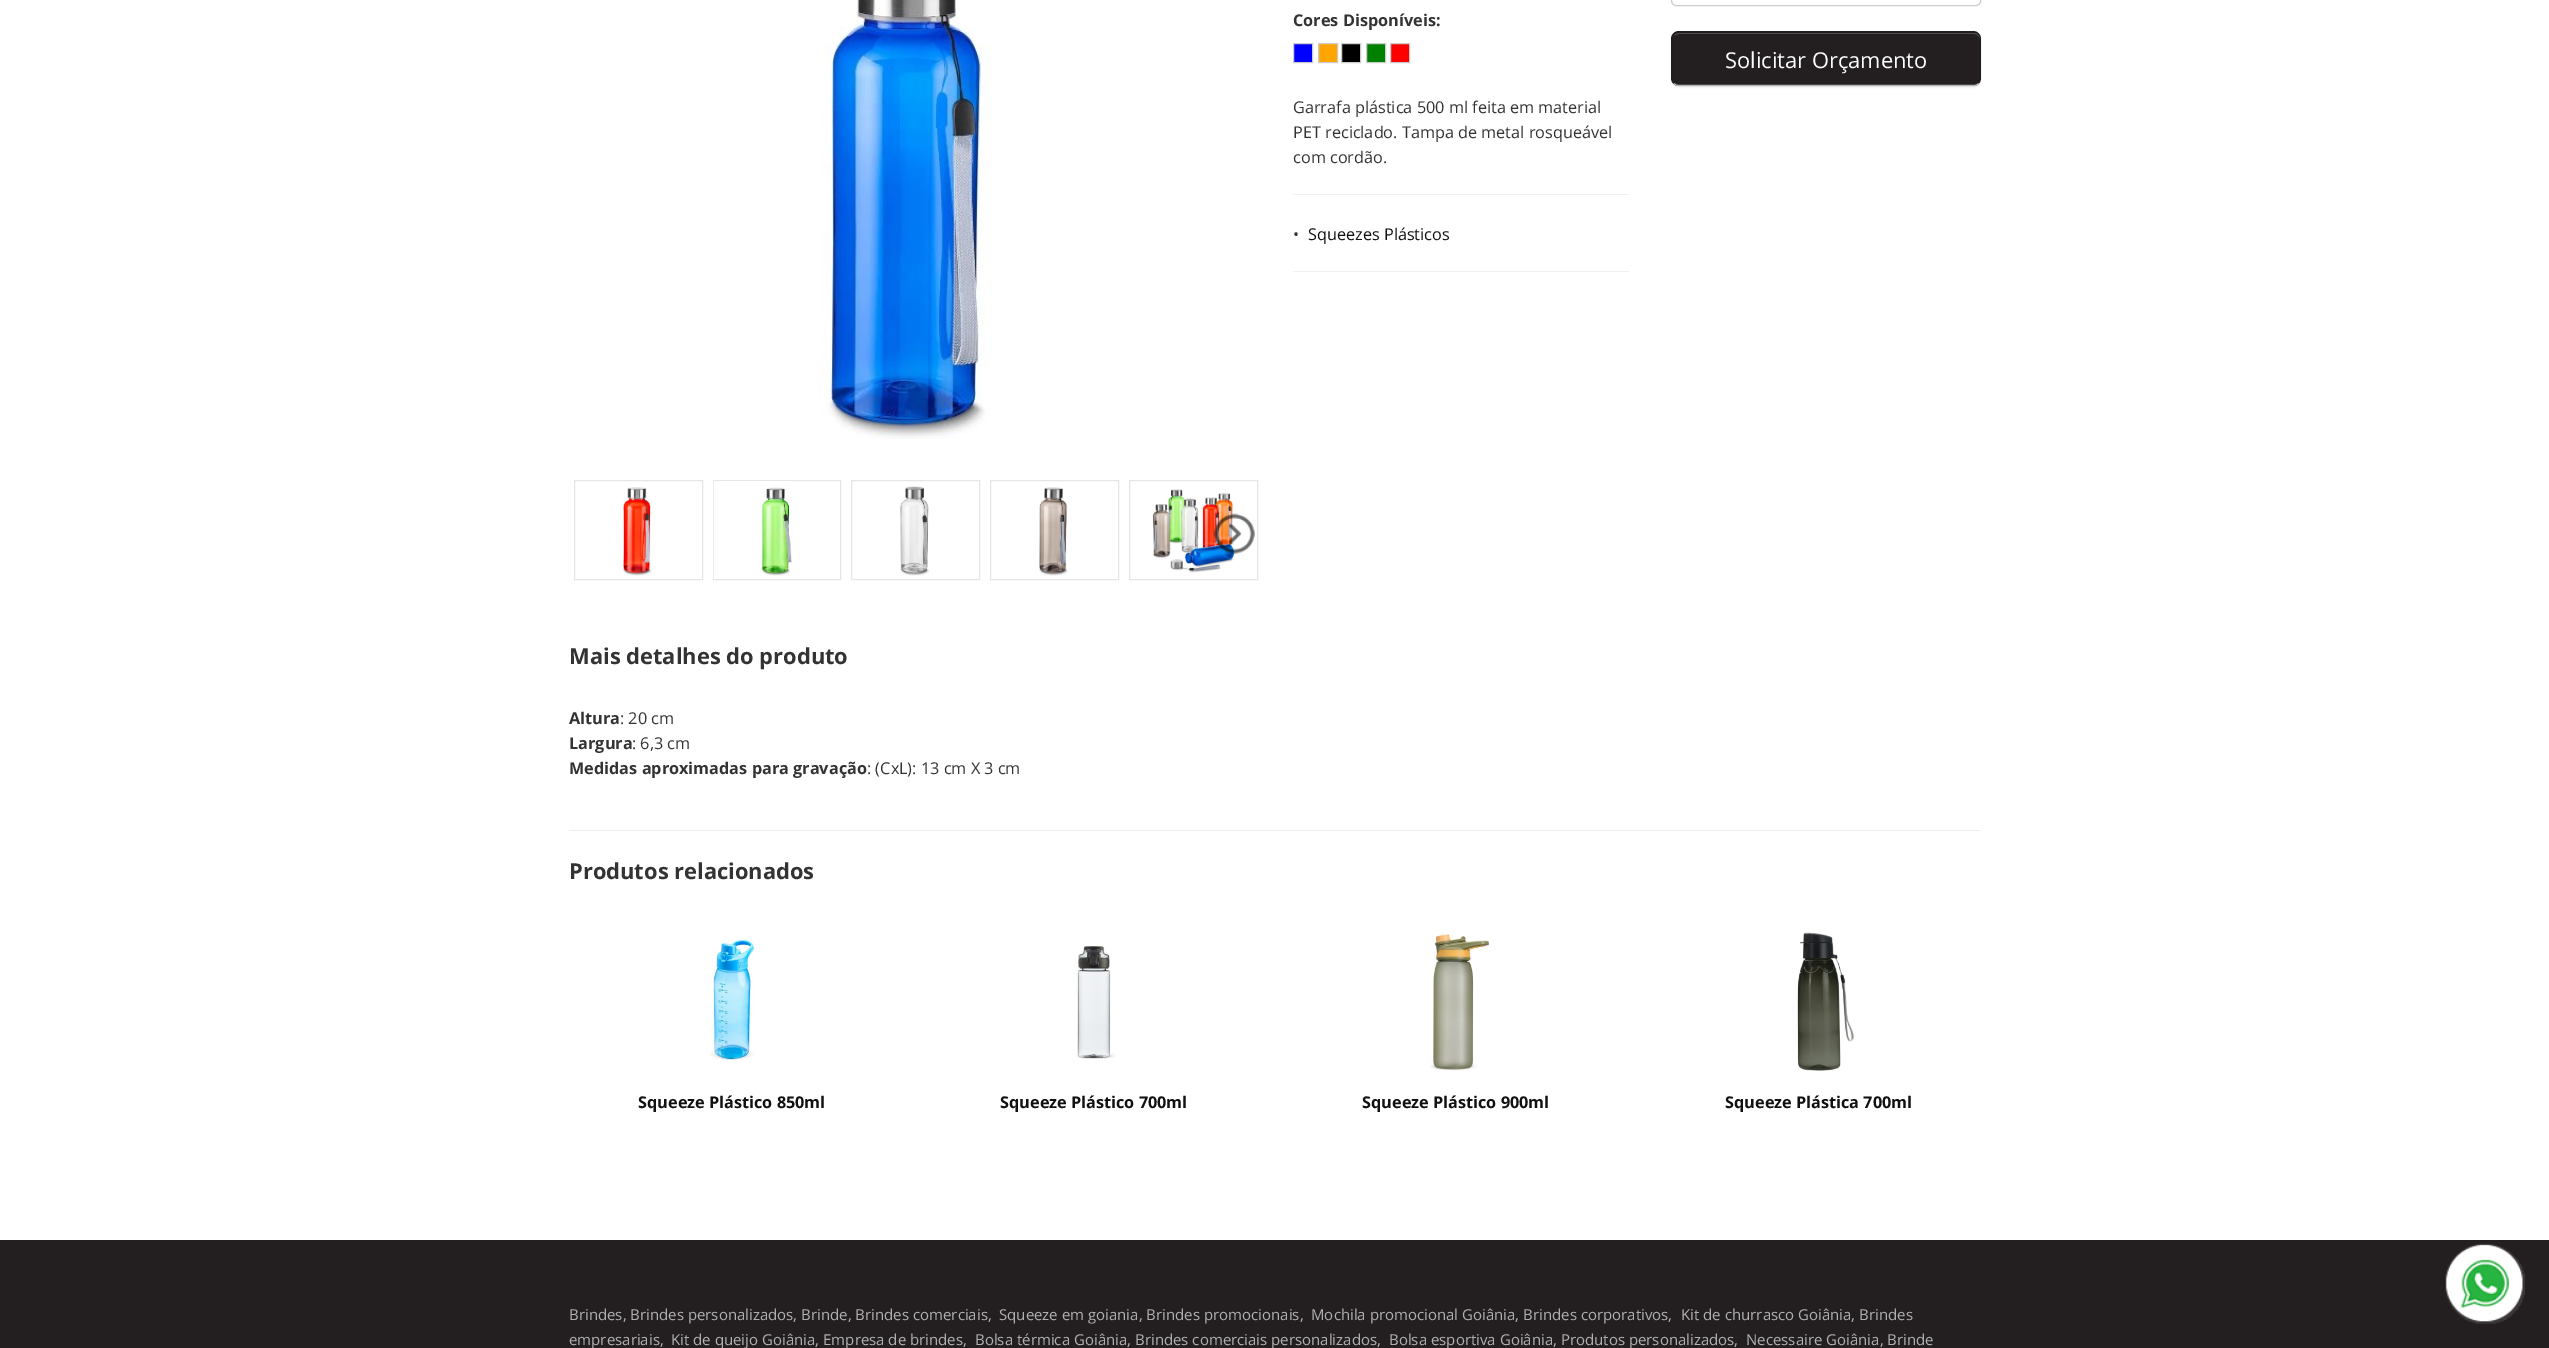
%!PS-Adobe-3.0
%%BoundingBox: 0 0 2549 1348
%%LanguageLevel: 3
%%Pages: 1
%%EndComments
%%BeginProlog
/setink { dup -16 bitshift 255 div exch dup -8 bitshift 255 and 255 div exch 255 and 255 div setrgbcolor } def
/usefont { [ exch dup neg 0 0 3 -1 roll 0 0 ] selectfont } def
/setalpha { dup .setfillconstantalpha .setstrokeconstantalpha } def
/rrect { 5 dict begin { /r /h /w /y /x } { exch def } forall
  x r add y moveto x w add y 2 copy h add r arct x w add y h add x 1 index r arct
  x y h add x y r arct x y 2 copy exch w add exch r arct closepath end } def
/softshadow { 12 dict begin { /a /b /q /h /w /y /x } { exch def } forall gsave /was 0 def
  9 -2 -9 { dup b mul 4 div /e exch def 1 sub .425 mul 2.718 exch exp 1 add a .99 .min exch div /now exch def
    1 1 now sub 1 was sub div sub setalpha /was now def
    w h .min e 2 mul add 0 gt { x e sub y e sub w e 2 mul add h e 2 mul add
      q e add b .6 mul add w h .min 2 div e add .min 0 .max rrect fill } if } for grestore end } def
/drawimage { 5 dict begin { /h /w /y /x /name } { exch def } forall
  gsave x y translate w h scale
  w h 8 [w 0 0 h 0 0] name (r) file false 3 colorimage grestore end } def
%%EndProlog
%%BeginSetup
<< /PageSize [2549 1348] /PageUsesTransparency true >> setpagedevice
%%EndSetup
%%Page: 1 1
0 .pushpdf14devicefilter
0 1348 translate 1 -1 scale
4 setmiterlimit
16#FFFFFF setink
0 0 2549 1348 rectfill
(img1.raw) 822 0 170 439 drawimage
16#E6E6E6 setink
574.5 480.5 128 99 rectstroke
(img2.raw) 622 487 30 89 drawimage
713.5 480.5 127 99 rectstroke
(img3.raw) 713 481 79 98 drawimage
851.5 480.5 128 99 rectstroke
(img4.raw) 900 486 29 90 drawimage
990.5 480.5 128 99 rectstroke
(img5.raw) 1039 487 29 89 drawimage
1129.5 480.5 128 99 rectstroke
(img6.raw) 1152 489 83 84 drawimage
(img7.raw) 1213 513 42 41 drawimage
/OpenSans-Bold 16.25 usefont
16#333333 setink
1293 26 moveto (Cores Disponíveis:) show
16#0000FF setink
1293.5 43.5 moveto 1312.5 43.5 lineto 1312.5 62.5 lineto 1293.5 62.5 lineto closepath gsave fill grestore
16#CCCCCC setink
stroke
16#FFA500 setink
1318.5 43.5 moveto 1337.5 43.5 lineto 1337.5 62.5 lineto 1318.5 62.5 lineto closepath gsave fill grestore
16#CCCCCC setink
stroke
16#000000 setink
1341.5 43.5 moveto 1360.5 43.5 lineto 1360.5 62.5 lineto 1341.5 62.5 lineto closepath gsave fill grestore
16#CCCCCC setink
stroke
16#008000 setink
1366.5 43.5 moveto 1385.5 43.5 lineto 1385.5 62.5 lineto 1366.5 62.5 lineto closepath gsave fill grestore
16#CCCCCC setink
stroke
16#FF0000 setink
1390.5 43.5 moveto 1409.5 43.5 lineto 1409.5 62.5 lineto 1390.5 62.5 lineto closepath gsave fill grestore
16#CCCCCC setink
stroke
/OpenSans-Regular 16.25 usefont
16#333333 setink
[
    [(Garrafa plástica 500 ml feita em material) 1293 113]
    [(PET reciclado. Tampa de metal rosqueável) 1293 138]
    [(com cordão.) 1293 163]
] { aload pop moveto show } forall
16#F0F0F0 setink
1293 194 336 1 rectfill
16#333333 setink
1293 240 moveto (•) show
16#111111 setink
1308 240 moveto (Squeezes Plásticos) show
16#F0F0F0 setink
1293 271 336 1 rectfill
16#CCCCCC setink
1671.5 -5.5 309 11 4.5 rrect stroke
16#000000 setink
1671 33 310 55 8 1 0.05 softshadow
16#231F20 setink
1671 31 310 55 8 rrect fill
16#4F4C4D setink
1679 34 moveto 1974 34 lineto 1977 34 1980 37 1980 40 curveto 1980 39 lineto 1980 36 1977 33 1974 33 curveto 1679 33 lineto 1677 33 1675 34 1674 36 curveto 1675 35 1677 34 1679 34 curveto closepath fill
16#B3B3B3 setink
1.2 setlinewidth
1978.5 83.5 moveto 1977.5 85 1975.5 85.5 1974 85.5 curveto 1679 85.5 lineto 1677 85.5 1675 85 1674 83.5 curveto stroke
0.1 setalpha
16#000000 setink
1674 83.5 moveto 1672.5 82.5 1672 80.5 1672 79 curveto 1672 39 lineto 1672 37 1672.5 35 1674 34 curveto 1675 32.5 1677 32 1679 32 curveto 1974 32 lineto 1975.5 32 1977.5 32.5 1978.5 34 curveto 1980 35 1980.5 37 1980.5 39 curveto 1980.5 79 lineto 1980.5 80.5 1980 82.5 1978.5 83.5 curveto stroke
/OpenSans-Regular 21.9 usefont
1 setalpha
16#FFFFFF setink
1725 68 moveto (Solicitar Orçamento) show
/OpenSans-Bold 21.9 usefont
16#333333 setink
569 664 moveto (Mais detalhes do produto) show
/OpenSans-Bold 16.25 usefont
569 724 moveto (Altura) show
/OpenSans-Regular 16.25 usefont
620 724 moveto (: 20 cm) show
/OpenSans-Bold 16.25 usefont
569 749 moveto (Largura) show
/OpenSans-Regular 16.25 usefont
632 749 moveto (: 6,3 cm) show
/OpenSans-Bold 16.25 usefont
569 774 moveto (Medidas aproximadas para gravação) show
/OpenSans-Regular 16.25 usefont
867 774 moveto (: \(CxL\): 13 cm X 3 cm) show
16#F0F0F0 setink
569 830 1412 1 rectfill
/OpenSans-Bold 21.9 usefont
16#333333 setink
569 879 moveto (Produtos relacionados) show
(img8.raw) 710 938 45 122 drawimage
/OpenSans-Bold 16.25 usefont
16#111111 setink
638 1108 moveto (Squeeze Plástico 850ml) show
(img9.raw) 1076 945 40 114 drawimage
1000 1108 moveto (Squeeze Plástico 700ml) show
(img10.raw) 1430 932 60 139 drawimage
1362 1108 moveto (Squeeze Plástico 900ml) show
(img11.raw) 1797 932 58 139 drawimage
1725 1108 moveto (Squeeze Plástica 700ml) show
16#231F20 setink
0 1240 2549 108 rectfill
(img12.raw) 2445 1243 80 81 drawimage
/OpenSans-Regular 15 usefont
16#B1B0B0 setink
[
    [(Brindes, Brindes personalizados, Brinde, Brindes comerciais,) 569 1320]
    [(Squeeze em goiania, Brindes promocionais,) 999 1320]
    [(Mochila promocional Goiânia, Brindes corporativos,) 1311 1320]
    [(Kit de churrasco Goiânia, Brindes) 1681 1320]
    [(empresariais,) 569 1345]
    [(Kit de queijo Goiânia, Empresa de brindes,) 671 1345]
    [(Bolsa térmica Goiânia, Brindes comerciais personalizados,) 975 1345]
    [(Bolsa esportiva Goiânia, Produtos personalizados,) 1389 1345]
    [(Necessaire Goiânia, Brinde) 1746 1345]
] { aload pop moveto show } forall
.poppdf14devicefilter showpage
%%EOF
